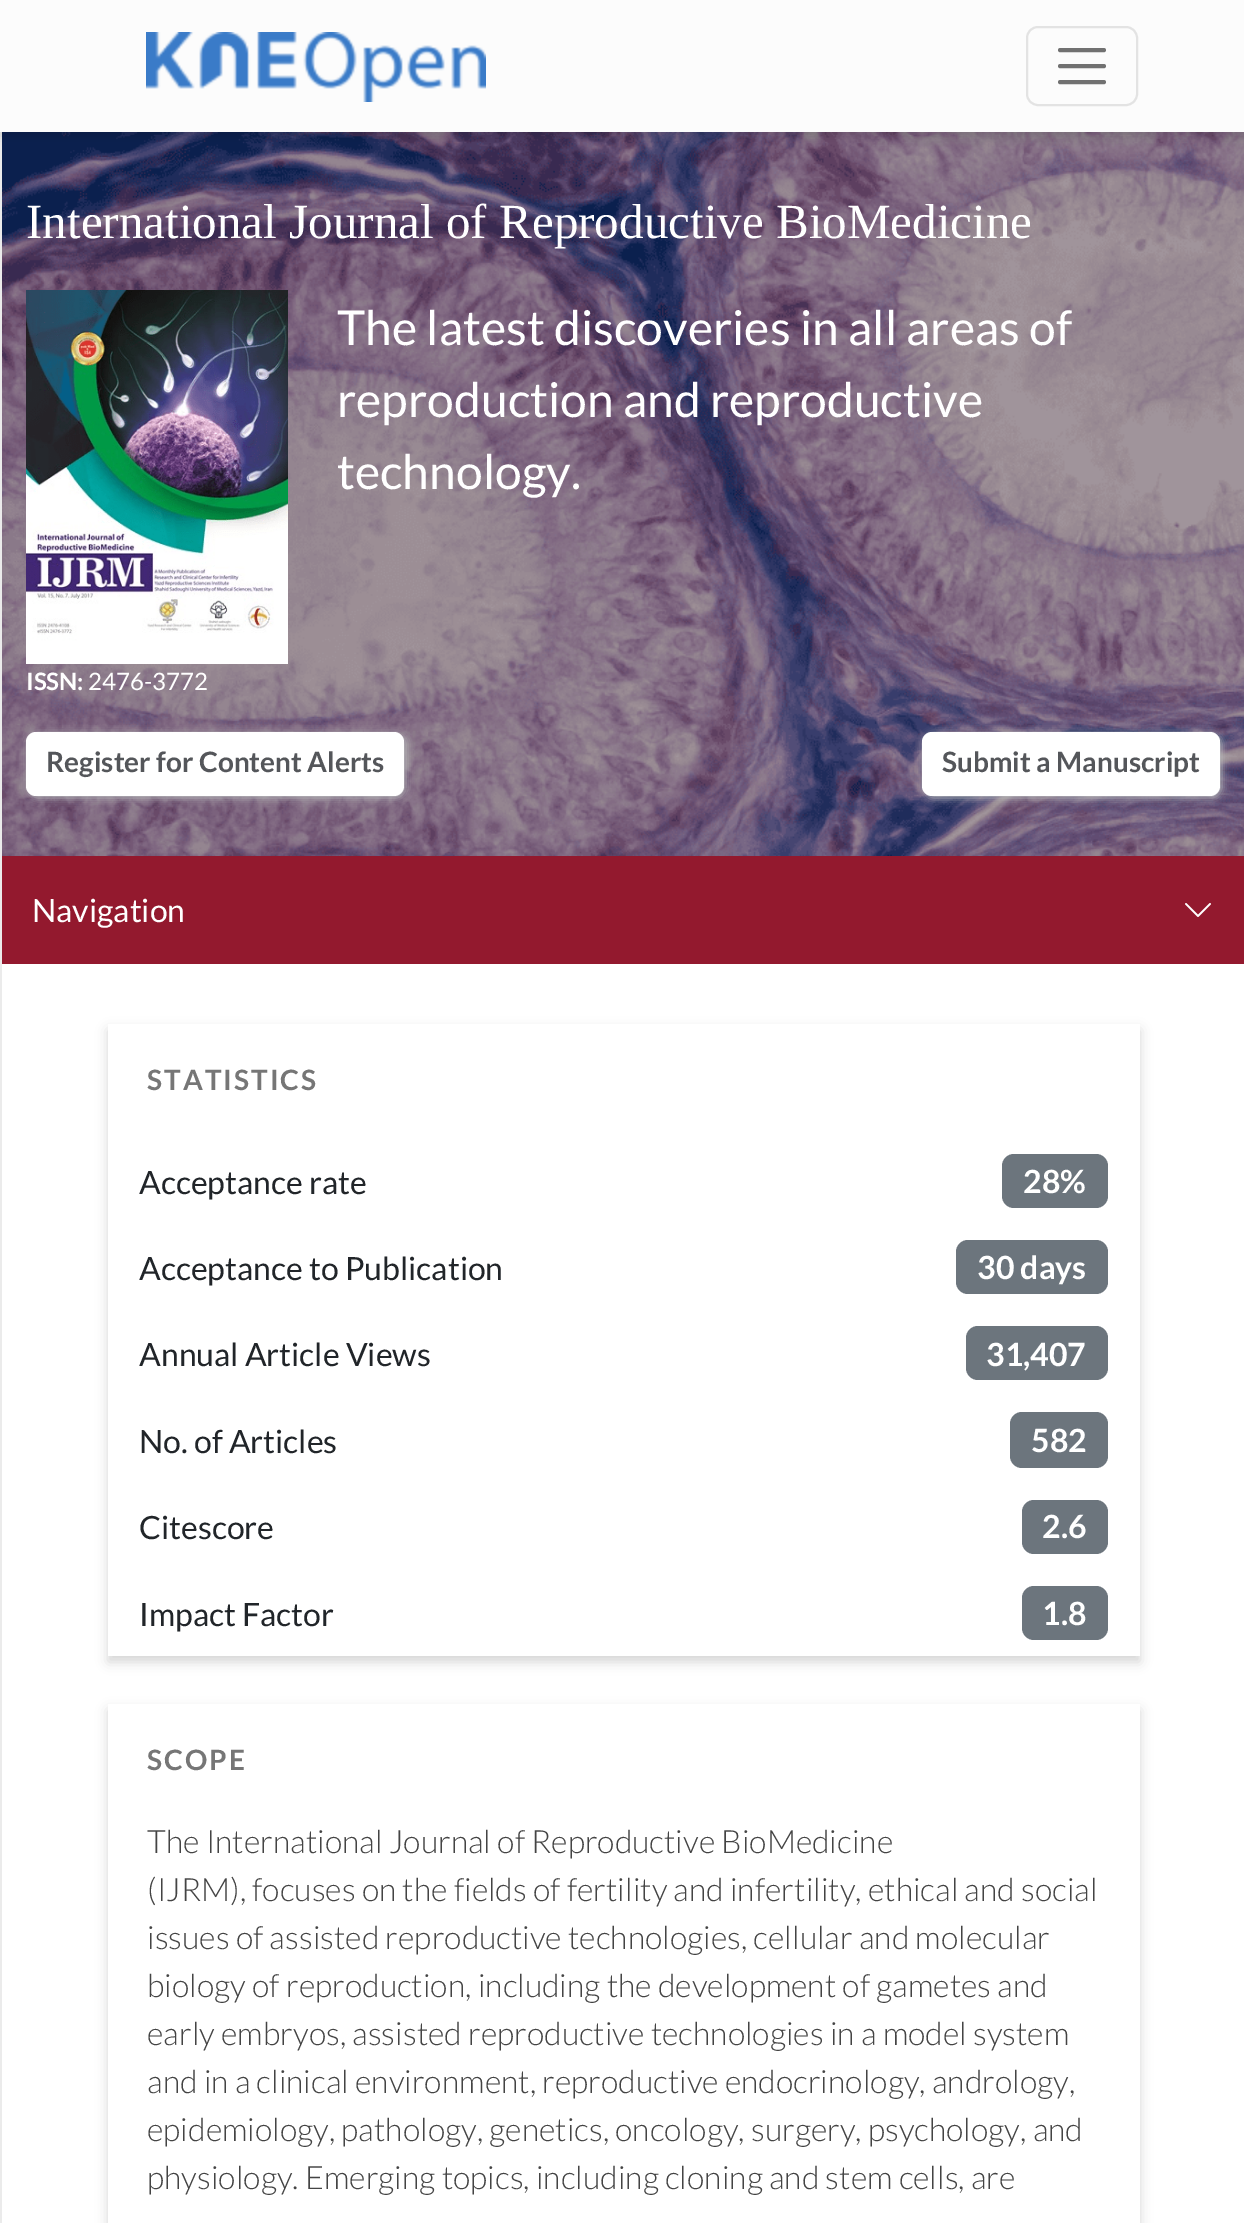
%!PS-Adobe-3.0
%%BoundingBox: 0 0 1244 2223
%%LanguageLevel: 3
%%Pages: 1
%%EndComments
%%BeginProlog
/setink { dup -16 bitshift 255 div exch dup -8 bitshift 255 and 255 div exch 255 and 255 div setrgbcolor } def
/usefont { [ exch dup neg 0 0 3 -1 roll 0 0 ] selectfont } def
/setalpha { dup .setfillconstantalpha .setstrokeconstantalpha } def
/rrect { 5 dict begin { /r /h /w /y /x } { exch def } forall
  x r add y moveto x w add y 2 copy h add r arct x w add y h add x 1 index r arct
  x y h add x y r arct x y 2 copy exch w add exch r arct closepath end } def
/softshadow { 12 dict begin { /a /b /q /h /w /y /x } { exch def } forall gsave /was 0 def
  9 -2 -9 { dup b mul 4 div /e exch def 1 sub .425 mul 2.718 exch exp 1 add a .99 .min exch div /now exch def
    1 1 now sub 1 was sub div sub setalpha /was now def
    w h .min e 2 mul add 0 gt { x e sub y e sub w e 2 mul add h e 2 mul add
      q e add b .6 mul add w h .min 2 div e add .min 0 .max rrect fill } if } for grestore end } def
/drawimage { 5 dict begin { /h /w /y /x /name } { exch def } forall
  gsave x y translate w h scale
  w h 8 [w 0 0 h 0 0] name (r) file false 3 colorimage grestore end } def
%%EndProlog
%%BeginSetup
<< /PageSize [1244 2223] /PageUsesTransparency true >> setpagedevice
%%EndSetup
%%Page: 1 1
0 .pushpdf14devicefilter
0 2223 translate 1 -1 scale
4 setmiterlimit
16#FFFFFF setink
0 0 1244 2223 rectfill
16#EBEBEB setink
0 132 2 2091 rectfill
(img2.raw) 2 132 1242 724 drawimage
16#000000 setink
0 4 1244 132 0 5 0.13 softshadow
16#FCFCFC setink
0 0 1244 132 rectfill
(img1.raw) 146 32 340 70 drawimage
16#E3E3E3 setink
2 setlinewidth
1027 27 110 78 11 rrect stroke
16#717171 setink
4 setlinewidth
1 setlinecap
1060 50 moveto 1104 50 lineto 1060 66 moveto 1104 66 lineto 1060 82 moveto 1104 82 lineto stroke
/Tinos-Regular 49.1 usefont
16#FFFFFF setink
26 238 moveto (International Journal of Reproductive BioMedicine) show
/Lato-Regular 48 usefont
[
    [(The latest discoveries in all areas of) 337 345]
    [(reproduction and reproductive) 337 417]
    [(technology.) 337 489]
] { aload pop moveto show } forall
(img3.raw) 26 290 262 374 drawimage
/Lato-Bold 24 usefont
26 690 moveto (ISSN:) show
/Lato-Regular 24 usefont
88 690 moveto (2476-3772) show
16#B8BABC setink
28 734 378 64 10 4 1 softshadow
16#FFFFFF setink
26 732 378 64 10 rrect fill
/Lato-Bold 28 usefont
16#54565A setink
46 772 moveto (Register for Content Alerts) show
16#B8BABC setink
924 734 298 64 10 4 1 softshadow
16#FFFFFF setink
922 732 298 64 10 rrect fill
16#54565A setink
942 772 moveto (Submit a Manuscript) show
16#93192E setink
2 856 1242 108 rectfill
/Lato-Regular 32 usefont
16#FFFFFF setink
32 922 moveto (Navigation) show
(img4.raw) 1185 903 26 14 drawimage
gsave
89 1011 moveto 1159 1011 lineto 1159 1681 lineto 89 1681 lineto closepath 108 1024 moveto 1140 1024 lineto 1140 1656 lineto 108 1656 lineto closepath eoclip newpath
16#000000 setink
108 1030 1032 632 0 6 0.16 softshadow
grestore
/Lato-Bold 28 usefont
16#767676 setink
147 1090 moveto 2 0 (STATISTICS) ashow
/Lato-Regular 32 usefont
16#212529 setink
139 1194 moveto (Acceptance rate) show
16#6C757D setink
1002 1154 106 54 12 rrect fill
/Lato-Bold 32 usefont
16#FFFFFF setink
1023 1193 moveto (28%) show
/Lato-Regular 32 usefont
16#212529 setink
139 1280 moveto (Acceptance to Publication) show
16#6C757D setink
956 1240 152 54 12 rrect fill
/Lato-Bold 32 usefont
16#FFFFFF setink
977 1279 moveto (30 days) show
/Lato-Regular 32 usefont
16#212529 setink
139 1366 moveto (Annual Article Views) show
16#6C757D setink
966 1326 142 54 12 rrect fill
/Lato-Bold 32 usefont
16#FFFFFF setink
986 1366 moveto (31,407) show
/Lato-Regular 32 usefont
16#212529 setink
139 1453 moveto (No. of Articles) show
16#6C757D setink
1010 1412 98 56 12 rrect fill
/Lato-Bold 32 usefont
16#FFFFFF setink
1031 1452 moveto (582) show
/Lato-Regular 32 usefont
16#212529 setink
139 1539 moveto (Citescore) show
16#6C757D setink
1022 1500 86 54 12 rrect fill
/Lato-Bold 32 usefont
16#FFFFFF setink
1042 1538 moveto (2.6) show
/Lato-Regular 32 usefont
16#212529 setink
139 1626 moveto (Impact Factor) show
16#6C757D setink
1022 1586 86 54 12 rrect fill
/Lato-Bold 32 usefont
16#FFFFFF setink
1042 1625 moveto (1.8) show
gsave
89 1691 moveto 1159 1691 lineto 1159 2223 lineto 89 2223 lineto closepath 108 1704 moveto 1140 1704 lineto 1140 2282 lineto 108 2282 lineto closepath eoclip newpath
16#000000 setink
108 1710 1032 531 0 6 0.16 softshadow
grestore
/Lato-Bold 28 usefont
16#767676 setink
147 1770 moveto 2 0 (SCOPE) ashow
/Lato-Light 32 usefont
16#444444 setink
[
    [(The International Journal of Reproductive BioMedicine) 147 1853]
    [(\(IJRM\), focuses on the fields of fertility and infertility, ethical and social) 147 1901]
    [(issues of assisted reproductive technologies, cellular and molecular) 147 1949]
    [(biology of reproduction, including the development of gametes and) 147 1997]
    [(early embryos, assisted reproductive technologies in a model system) 147 2045]
    [(and in a clinical environment, reproductive endocrinology, andrology,) 147 2093]
    [(epidemiology, pathology, genetics, oncology, surgery, psychology, and) 147 2141]
    [(physiology. Emerging topics, including cloning and stem cells, are) 147 2189]
] { aload pop moveto show } forall
.poppdf14devicefilter showpage
%%EOF
